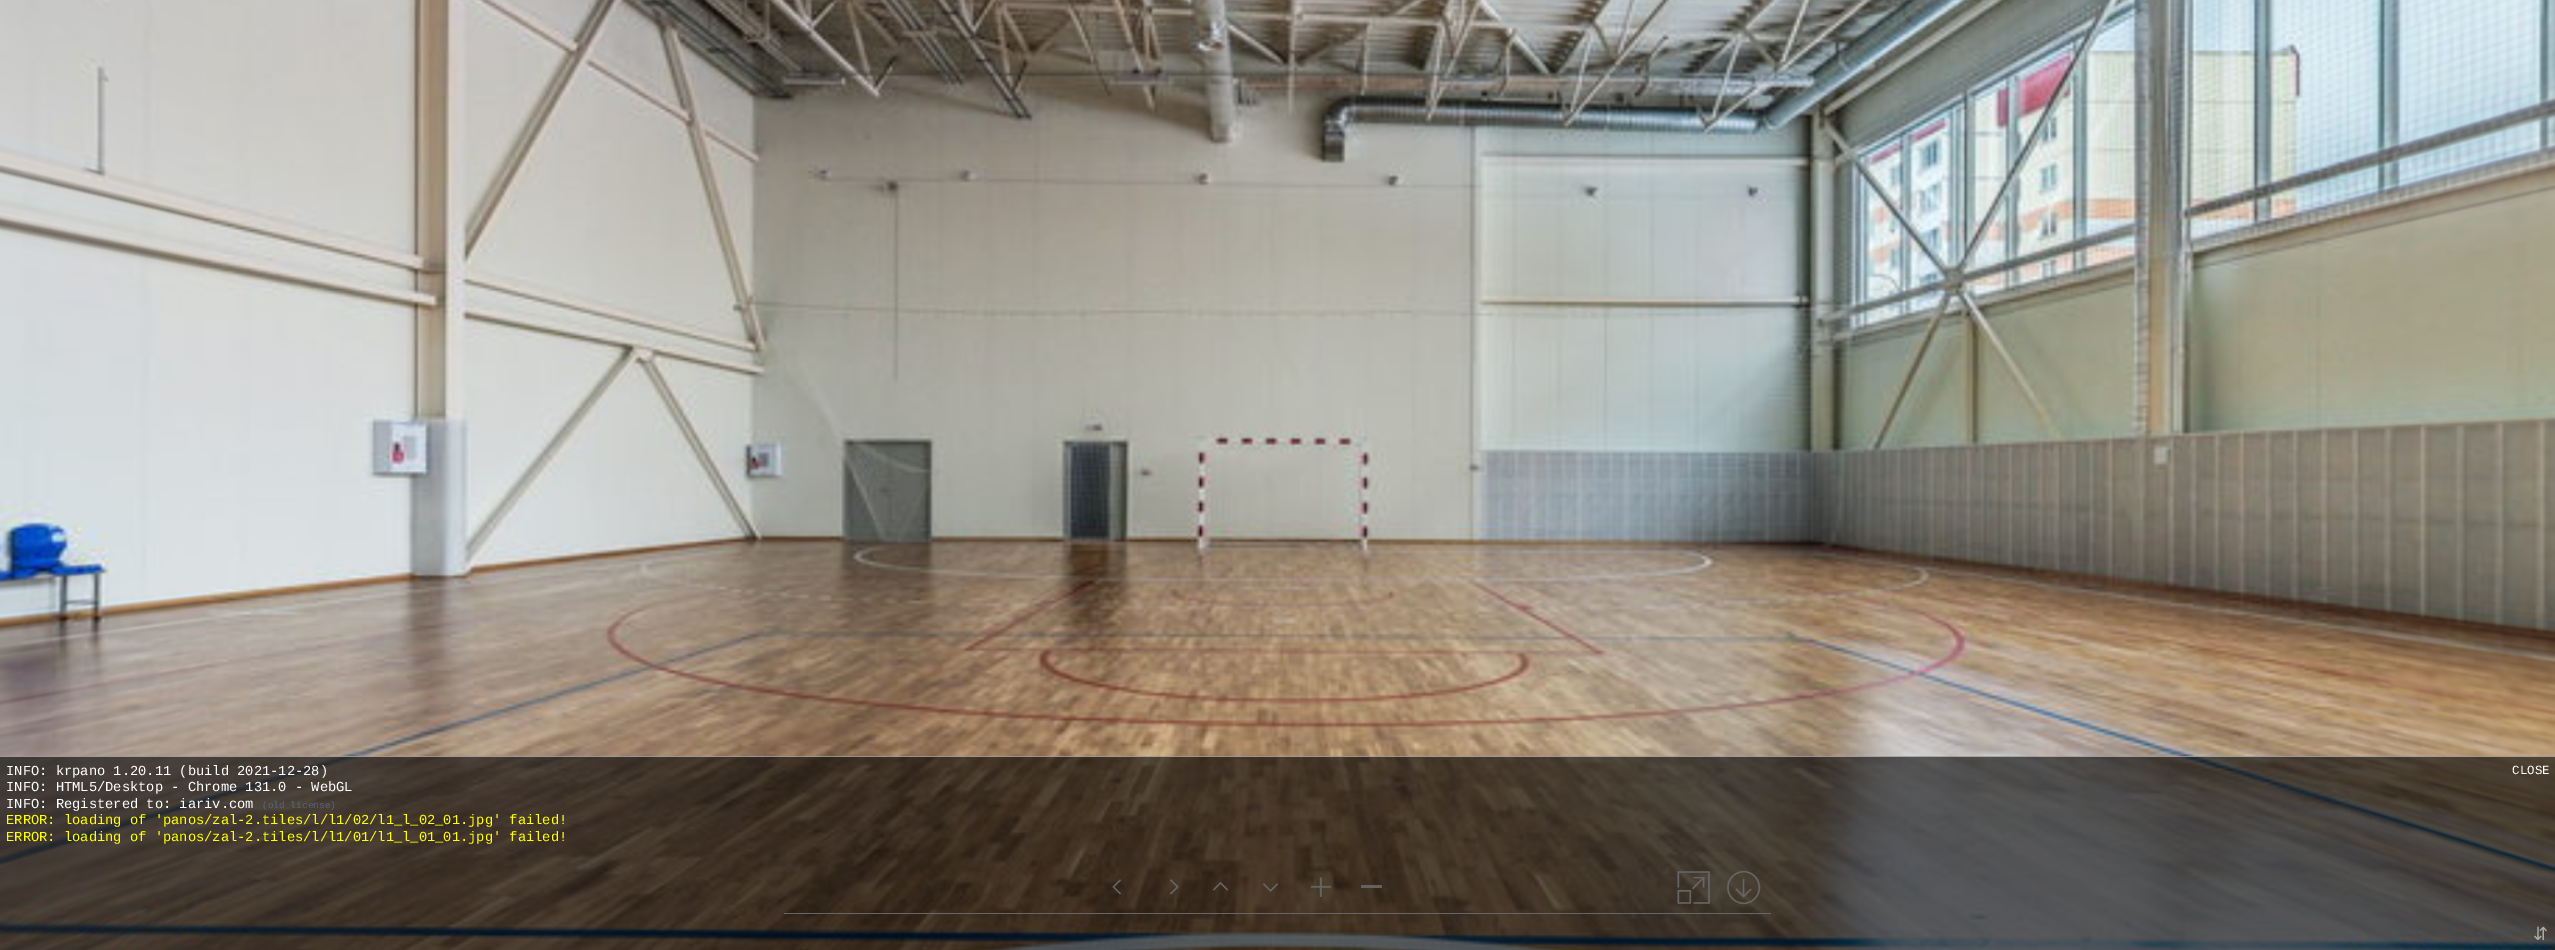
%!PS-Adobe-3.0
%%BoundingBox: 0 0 2555 950
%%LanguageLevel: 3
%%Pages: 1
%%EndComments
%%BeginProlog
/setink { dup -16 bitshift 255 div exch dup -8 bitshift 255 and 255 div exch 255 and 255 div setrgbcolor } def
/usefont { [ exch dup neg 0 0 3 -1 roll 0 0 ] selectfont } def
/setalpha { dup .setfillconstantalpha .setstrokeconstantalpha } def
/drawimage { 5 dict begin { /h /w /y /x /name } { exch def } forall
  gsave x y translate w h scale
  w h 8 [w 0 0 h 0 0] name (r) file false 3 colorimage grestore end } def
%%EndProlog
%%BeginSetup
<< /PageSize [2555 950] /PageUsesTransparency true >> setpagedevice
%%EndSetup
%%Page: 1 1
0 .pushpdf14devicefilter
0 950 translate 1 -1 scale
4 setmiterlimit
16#FFFFFF setink
0 0 2555 950 rectfill
(img1.raw) 0 0 2555 950 drawimage
(img2.raw) 1112 879 10 16 drawimage
(img3.raw) 1169 879 10 16 drawimage
(img4.raw) 1212 882 17 9 drawimage
(img5.raw) 1262 883 17 9 drawimage
(img6.raw) 1310 877 22 20 drawimage
0.92 setalpha
1361 885 21 3 rectfill
1 setalpha
(img7.raw) 1677 871 33 33 drawimage
(img8.raw) 1727 870 34 35 drawimage
[
    [784 913 987 1 16#FFFFFF]
] { aload pop setink rectfill } forall
0.6 setalpha
[
    [0 756 2555 194 16#000000]
] { aload pop setink rectfill } forall
0.48 setalpha
[
    [0 756 2555 1 16#FFFFFF]
] { aload pop setink rectfill } forall
/LiberationMono-Regular 13.75 usefont
1 setalpha
[
    [(INFO: krpano 1.20.11 \(build 2021-12-28\)) 6 775]
    [(INFO: HTML5/Desktop - Chrome 131.0 - WebGL) 6 791]
    [(INFO: Registered to: iariv.com) 6 808]
] { aload pop moveto show } forall
/LiberationMono-Regular 9.5 usefont
16#556677 setink
262 808 moveto (\(old license\)) show
/LiberationMono-Regular 13.75 usefont
16#FFFF00 setink
6 824 moveto (ERROR: loading of 'panos/zal-2.tiles/l/l1/02/l1_l_02_01.jpg' failed!) show
6 841 moveto (ERROR: loading of 'panos/zal-2.tiles/l/l1/01/l1_l_01_01.jpg' failed!) show
/LiberationMono-Regular 12.5 usefont
16#FFFFFF setink
2512 774 moveto (CLOSE) show
/DejaVuSans-Regular 18 usefont
16#AAAAAA setink
2533 940 moveto (⇵) show
.poppdf14devicefilter showpage
%%EOF
